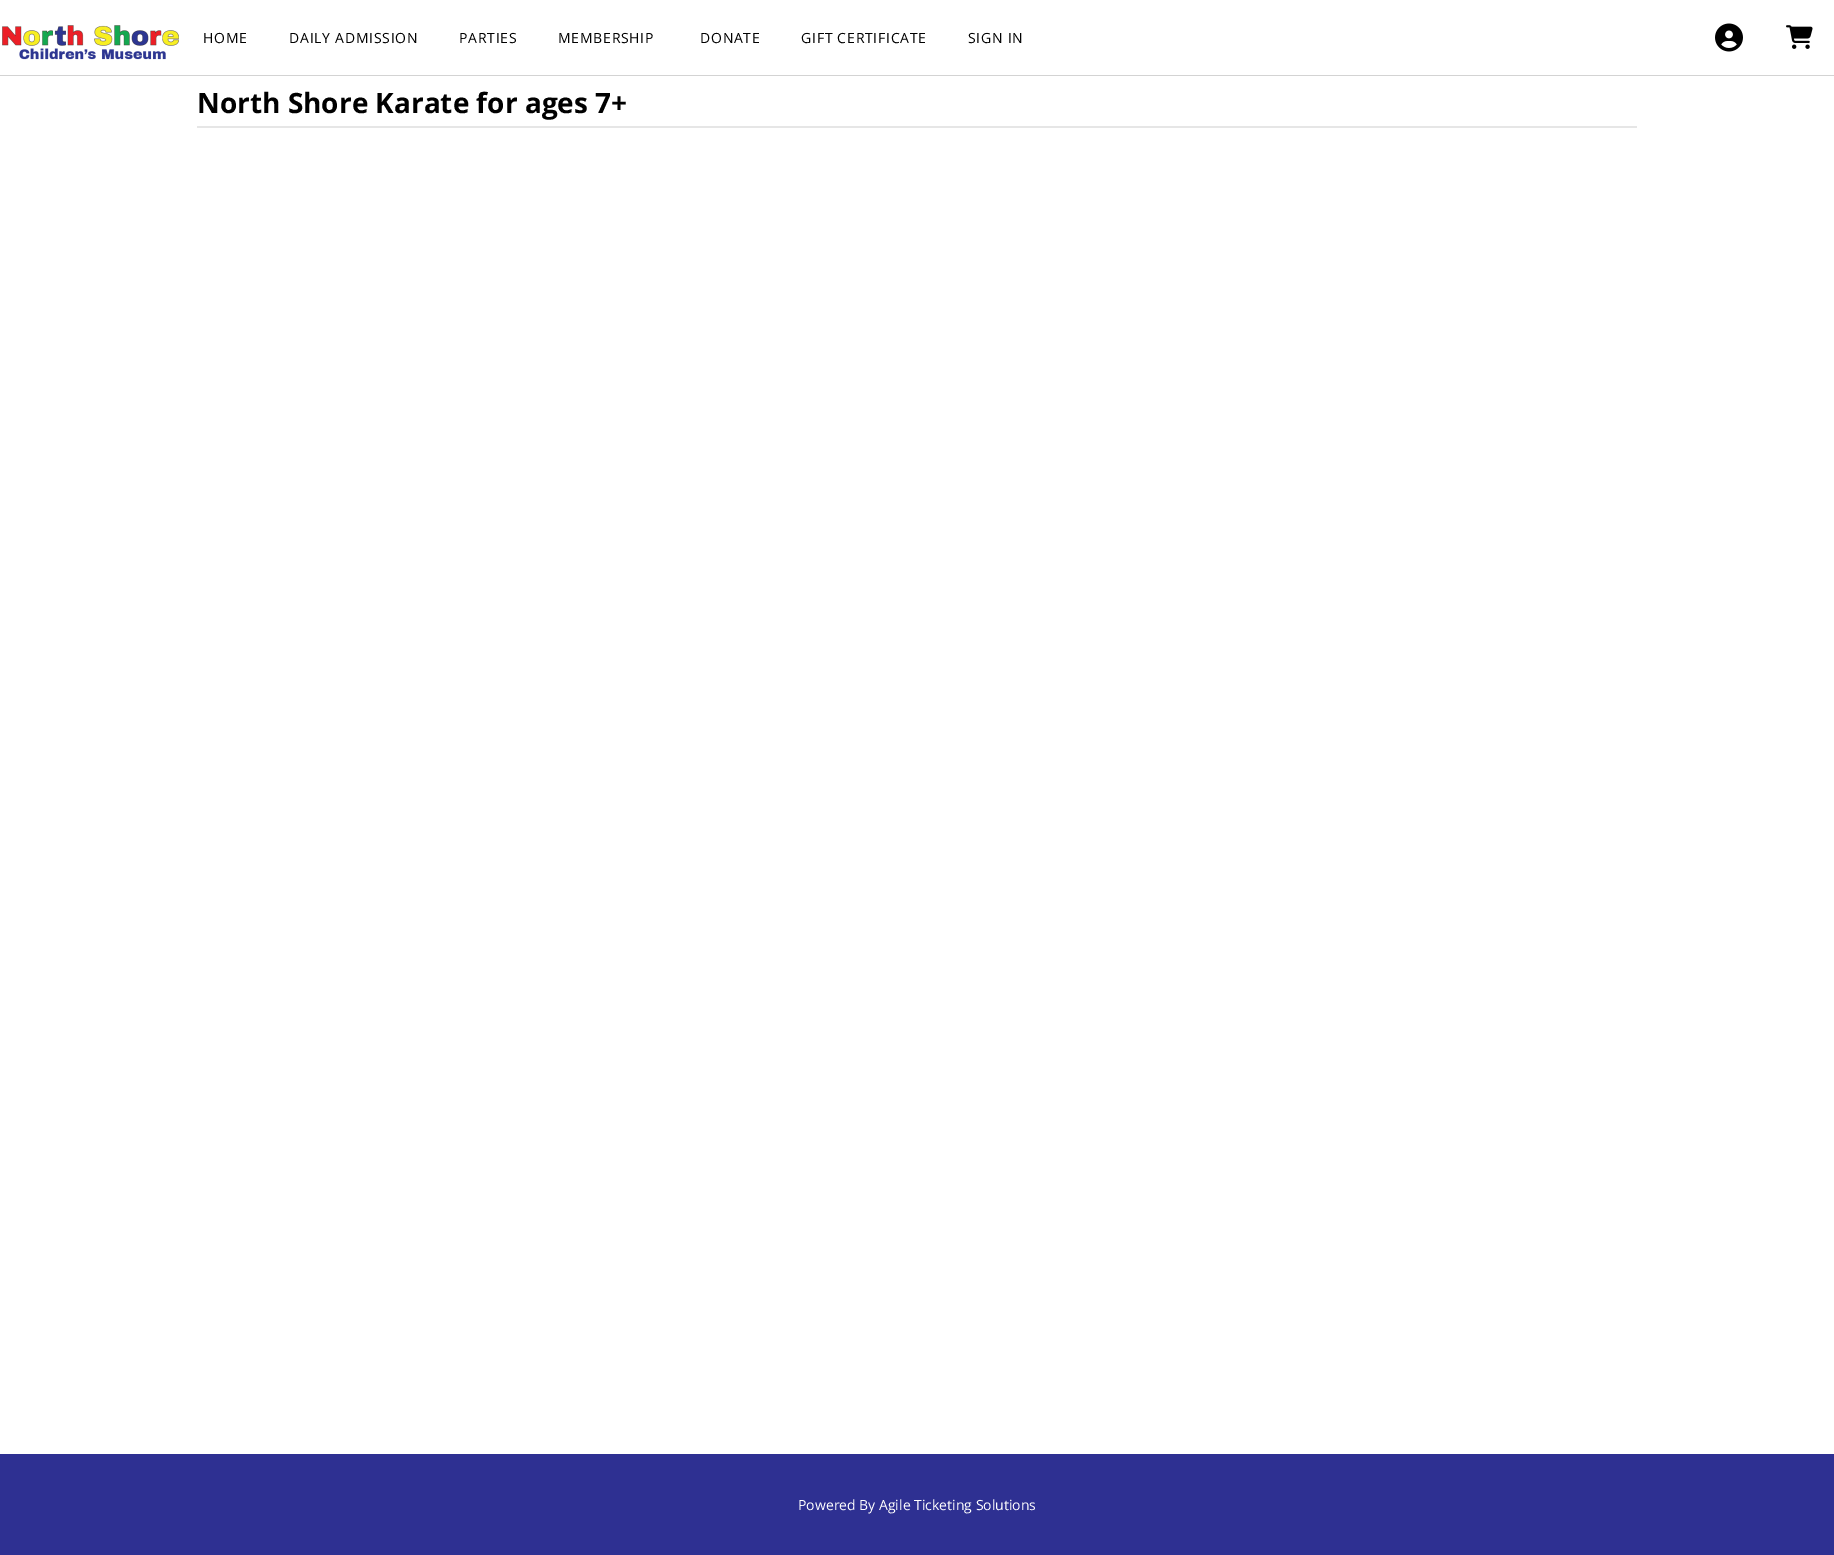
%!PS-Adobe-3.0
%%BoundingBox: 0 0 1834 1555
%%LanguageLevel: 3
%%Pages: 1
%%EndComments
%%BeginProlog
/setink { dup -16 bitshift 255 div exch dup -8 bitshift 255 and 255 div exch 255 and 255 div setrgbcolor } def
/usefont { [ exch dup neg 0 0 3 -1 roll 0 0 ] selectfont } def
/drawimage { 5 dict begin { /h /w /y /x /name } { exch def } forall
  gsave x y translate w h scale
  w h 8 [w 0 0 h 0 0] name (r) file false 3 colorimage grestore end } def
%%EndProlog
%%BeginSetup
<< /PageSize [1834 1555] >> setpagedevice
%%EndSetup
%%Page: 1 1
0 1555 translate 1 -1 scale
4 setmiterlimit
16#FFFFFF setink
0 0 1834 1555 rectfill
16#D3D3D3 setink
0 75 1834 1 rectfill
(img1.raw) 2 25 177 35 drawimage
/OpenSans-Regular 14 usefont
16#000000 setink
203 43 moveto 0.75 0 (HOME) ashow
289 43 moveto 0.75 0 (DAILY ADMISSION) ashow
459 43 moveto 0.75 0 (PARTIES) ashow
558 43 moveto 0.75 0 (MEMBERSHIP) ashow
700 43 moveto 0.75 0 (DONATE) ashow
801 43 moveto 0.75 0 (GIFT CERTIFICATE) ashow
968 43 moveto 0.75 0 (SIGN IN) ashow
(img2.raw) 1715 23 28 29 drawimage
(img3.raw) 1786 25 27 24 drawimage
/OpenSans-Bold 28 usefont
197 113 moveto (North Shore Karate for ages 7+) show
16#E6E6E6 setink
197 126 1440 2 rectfill
16#2E3092 setink
0 1454 1834 101 rectfill
/OpenSans-Regular 14 usefont
16#FFFFFF setink
798 1510 moveto (Powered By Agile Ticketing Solutions) show
showpage
%%EOF
